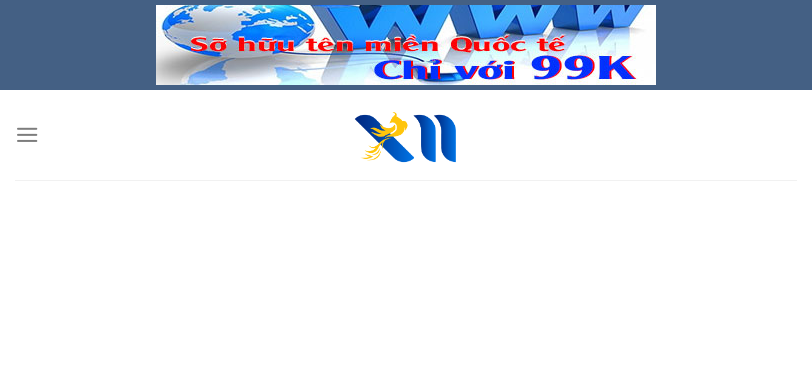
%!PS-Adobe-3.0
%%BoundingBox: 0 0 812 370
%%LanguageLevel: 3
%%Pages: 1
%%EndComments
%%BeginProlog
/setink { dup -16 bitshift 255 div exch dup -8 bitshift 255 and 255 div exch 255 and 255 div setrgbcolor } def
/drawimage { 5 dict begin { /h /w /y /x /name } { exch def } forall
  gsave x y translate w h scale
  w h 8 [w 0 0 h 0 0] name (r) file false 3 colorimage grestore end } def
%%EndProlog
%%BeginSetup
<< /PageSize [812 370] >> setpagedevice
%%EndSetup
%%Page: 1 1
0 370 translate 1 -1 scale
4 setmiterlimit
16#FFFFFF setink
0 0 812 370 rectfill
16#446084 setink
0 0 812 90 rectfill
(img1.raw) 156 5 500 80 drawimage
(img2.raw) 17 127 21 15 drawimage
(img3.raw) 354 112 102 51 drawimage
16#F1F1F1 setink
15 180 782 1 rectfill
showpage
%%EOF
